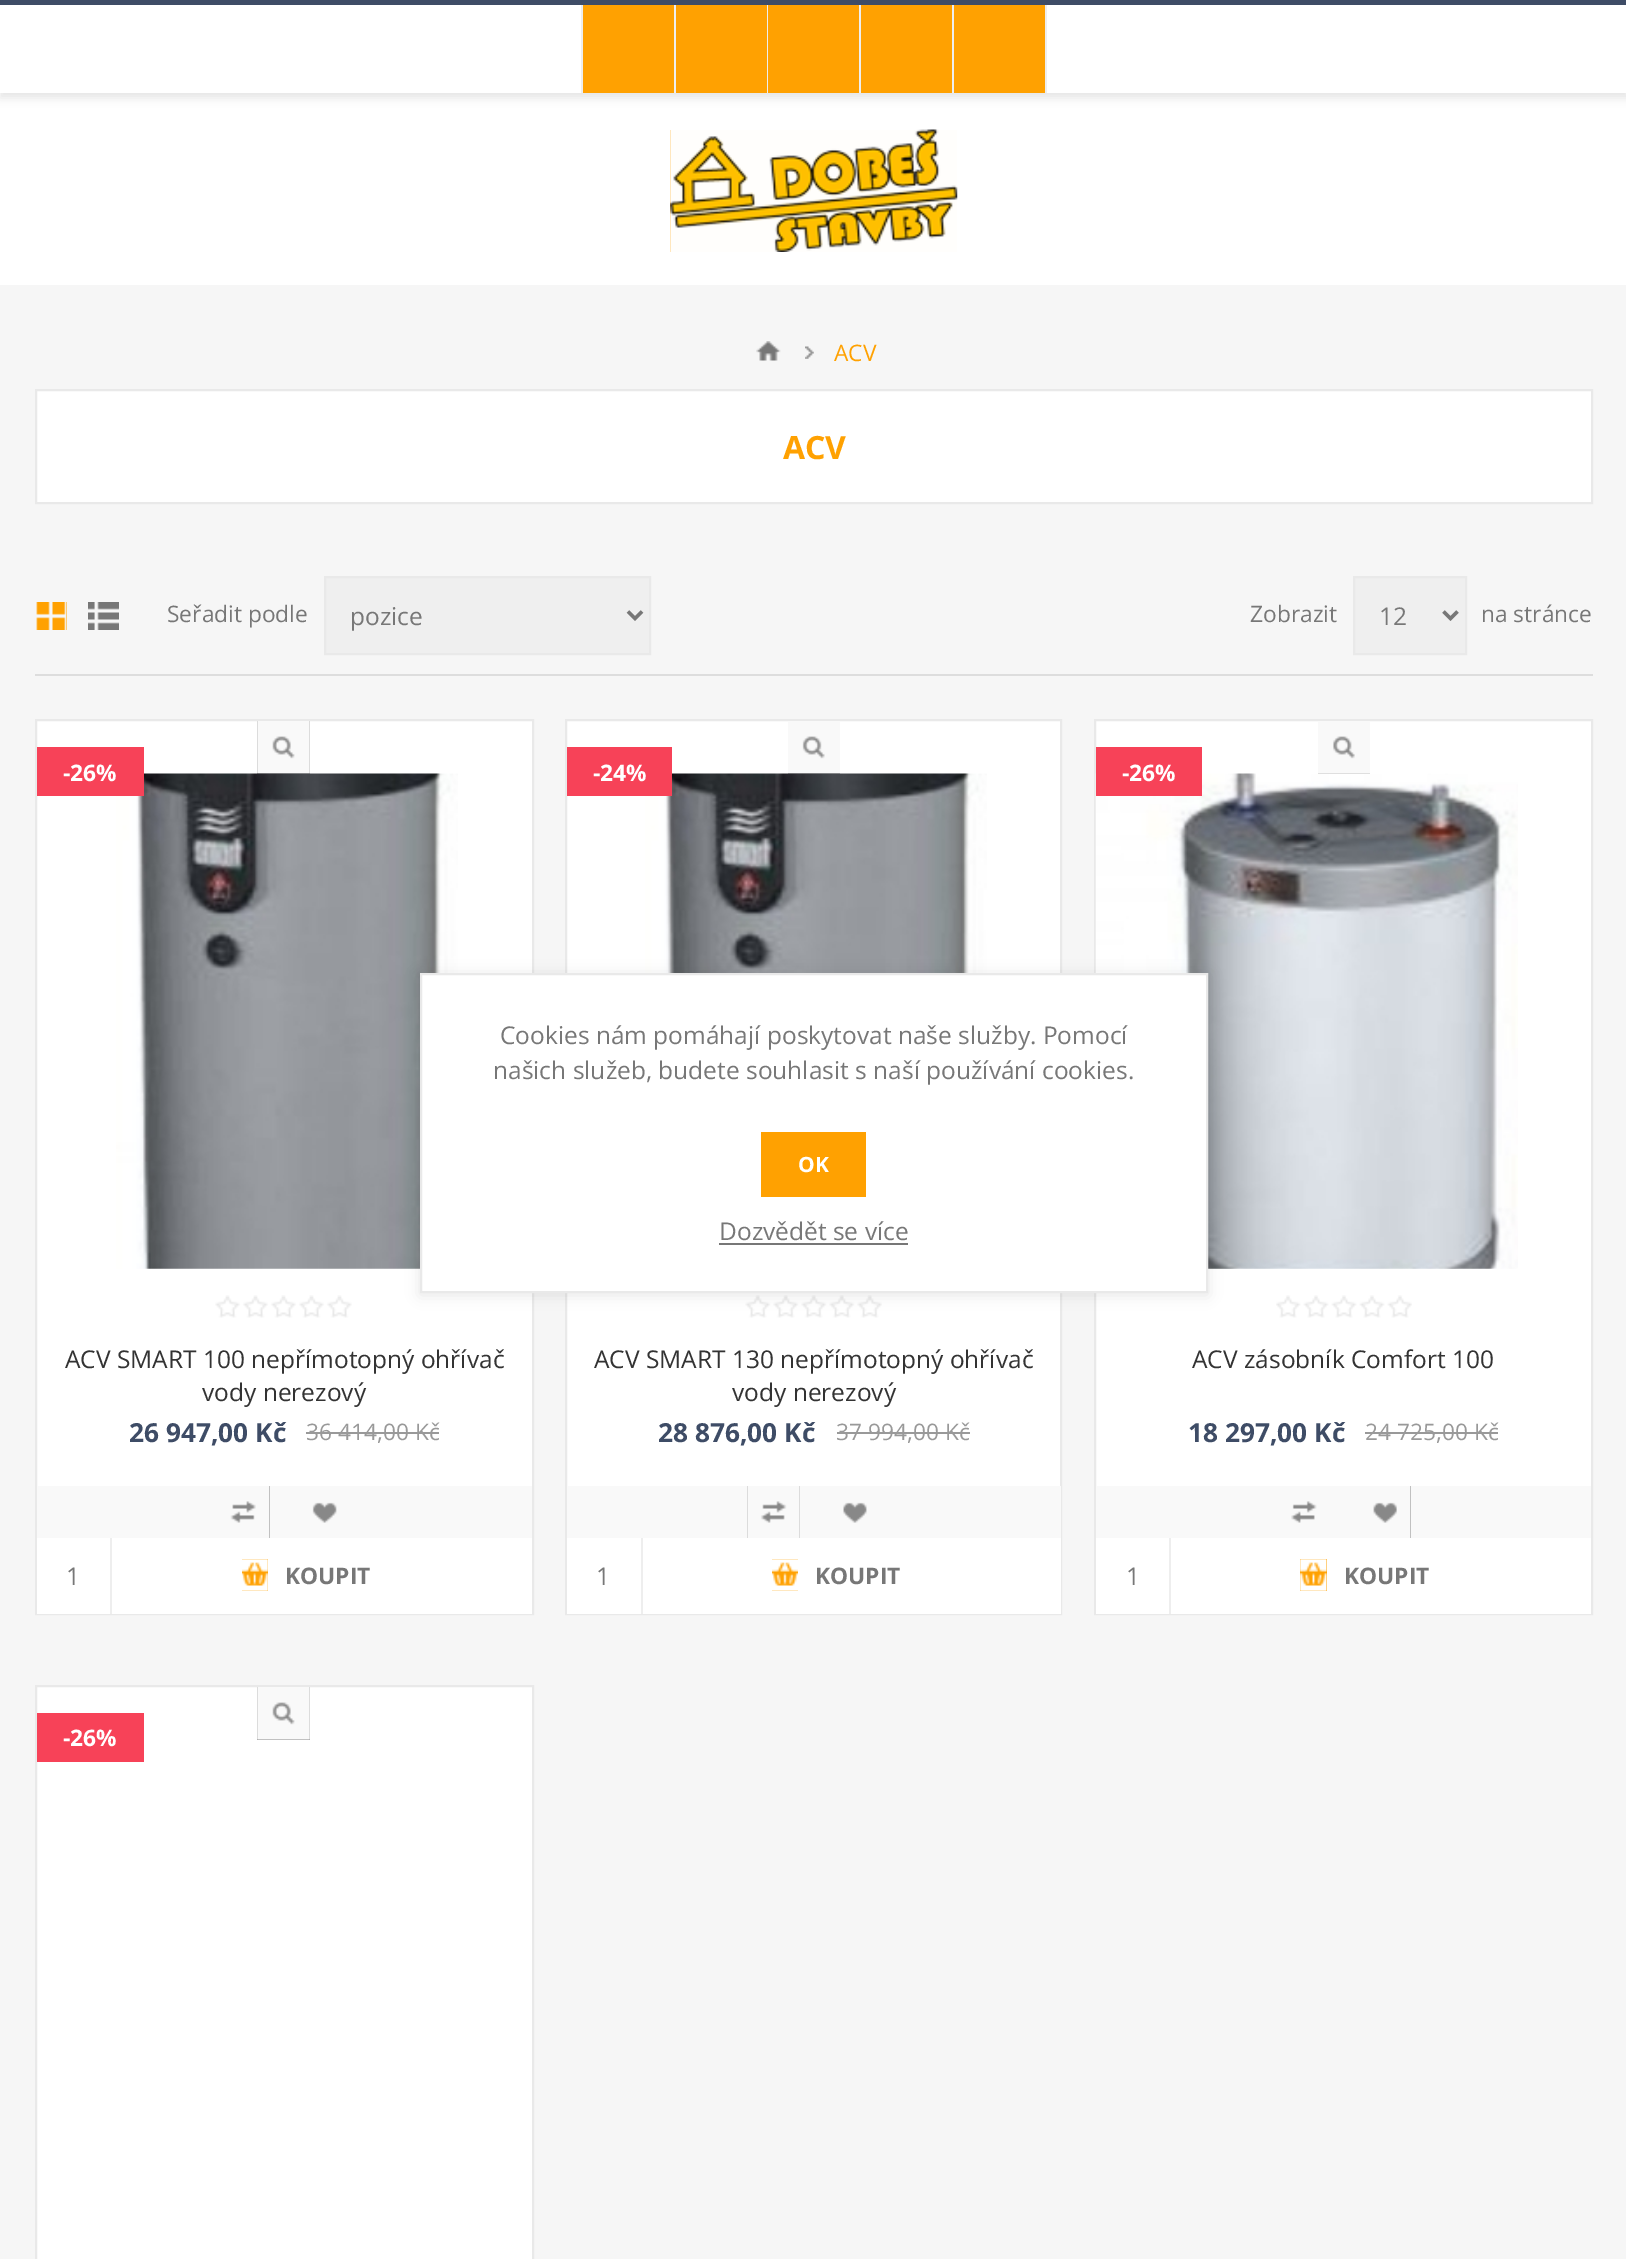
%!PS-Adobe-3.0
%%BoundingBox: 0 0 1626 2259
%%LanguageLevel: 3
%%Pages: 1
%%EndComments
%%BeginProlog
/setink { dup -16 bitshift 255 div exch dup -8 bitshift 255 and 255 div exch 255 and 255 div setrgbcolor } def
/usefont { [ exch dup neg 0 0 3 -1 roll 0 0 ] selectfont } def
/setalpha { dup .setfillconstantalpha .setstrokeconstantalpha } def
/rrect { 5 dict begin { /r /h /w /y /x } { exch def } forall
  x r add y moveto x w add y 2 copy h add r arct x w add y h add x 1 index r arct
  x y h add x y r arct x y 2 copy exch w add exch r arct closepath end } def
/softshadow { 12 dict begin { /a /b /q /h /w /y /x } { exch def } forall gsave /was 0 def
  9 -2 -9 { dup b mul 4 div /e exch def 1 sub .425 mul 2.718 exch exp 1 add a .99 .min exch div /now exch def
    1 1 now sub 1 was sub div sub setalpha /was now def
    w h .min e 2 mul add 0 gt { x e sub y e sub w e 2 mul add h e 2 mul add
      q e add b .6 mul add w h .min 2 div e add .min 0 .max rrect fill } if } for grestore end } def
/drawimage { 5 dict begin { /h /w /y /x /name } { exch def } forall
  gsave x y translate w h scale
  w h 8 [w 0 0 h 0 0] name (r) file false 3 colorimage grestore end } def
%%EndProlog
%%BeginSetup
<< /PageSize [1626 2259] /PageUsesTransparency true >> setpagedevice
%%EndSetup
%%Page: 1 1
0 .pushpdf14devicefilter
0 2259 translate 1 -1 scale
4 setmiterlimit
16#F6F6F6 setink
0 0 1626 2259 rectfill
16#FFFFFF setink
0 93 1626 192 rectfill
16#000000 setink
0 5 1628 93 0 4.5 0.1 softshadow
[
    [0 5 1626 88 16#FFFFFF]
    [0 0 1626 5 16#3E4C66]
    [583 5 91 88 16#FFA101]
    [674 5 2 88 16#EEEEEE]
    [581 5 2 88 16#EEEEEE]
    [676 5 91 88 16#FFA101]
    [767 5 1 88 16#EEEEEE]
    [768 5 91 88 16#FFA101]
    [859 5 2 88 16#EEEEEE]
    [861 5 91 88 16#FFA101]
    [952 5 2 88 16#EEEEEE]
    [954 5 91 88 16#FFA101]
    [1045 5 2 88 16#EEEEEE]
] { aload pop setink rectfill } forall
(img1.raw) 670 129 288 123 drawimage
(img2.raw) 756 341 25 20 drawimage
(img3.raw) 805 346 9 13 drawimage
/OpenSans-Regular 22.75 usefont
16#FFA101 setink
834 361 moveto (ACV) show
16#FFFFFF setink
36 390 moveto 1592 390 lineto 1592 503 lineto 36 503 lineto closepath gsave fill grestore
16#E9E9E9 setink
2 setlinewidth
stroke
/OpenSans-Bold 32 usefont
16#FFA101 setink
783 459 moveto (ACV) show
16#DDDDDD setink
35 674 1558 2 rectfill
16#FFA101 setink
36 602 31 28 rectfill
(img4.raw) 35 602 32 28 drawimage
16#777777 setink
88 602 31 28 rectfill
(img5.raw) 88 602 31 28 drawimage
/OpenSans-Regular 22.75 usefont
167 622 moveto (Seřadit podle) show
16#EFEFEF setink
325 577 moveto 650 577 lineto 650 654 lineto 325 654 lineto closepath gsave fill grestore
16#E9E9E9 setink
stroke
16#777777 setink
3.5 setlinewidth
628 611.5 moveto 635 618.5 lineto 642 611.5 lineto stroke
/OpenSans-Regular 24.5 usefont
350 625 moveto (pozice) show
/OpenSans-Regular 22.75 usefont
1250 622 moveto (Zobrazit) show
16#EFEFEF setink
1354 577 moveto 1466 577 lineto 1466 654 lineto 1354 654 lineto closepath gsave fill grestore
16#E9E9E9 setink
2 setlinewidth
stroke
16#777777 setink
3.5 setlinewidth
1443.5 611.5 moveto 1450.5 618.5 lineto 1457.5 611.5 lineto stroke
/OpenSans-Regular 24.5 usefont
1379 625 moveto (12) show
/OpenSans-Regular 22.75 usefont
1481 622 moveto (na stránce) show
16#FFFFFF setink
37 721 495 765 rectfill
16#E9E9E9 setink
2 setlinewidth
36 720 497 894 rectstroke
16#888888 setink
257 721 53 53 rectfill
(img6.raw) 257 721 53 53 drawimage
(img7.raw) 116 773 342 496 drawimage
16#F74258 setink
37 747 107 49 rectfill
/OpenSans-Bold 22.75 usefont
16#FFFFFF setink
63 781 moveto (-26%) show
(img8.raw) 215 1295 137 23 drawimage
/OpenSans-Regular 24.5 usefont
16#333333 setink
65 1368 moveto (ACV SMART 100 nepřímotopný ohřívač) show
202 1401 moveto (vody nerezový) show
/OpenSans-Bold 26.25 usefont
16#3E4C66 setink
129 1442 moveto (26 947,00 Kč) show
/OpenSans-Regular 22.75 usefont
16#999999 setink
306 1440 moveto (36 414,00 Kč) show
[
    [306 1432 133 2 16#999999]
    [37 1486 495 52 16#F9F9F9]
    [230 1486 40 52 16#888888]
] { aload pop setink rectfill } forall
(img9.raw) 217 1486 53 52 drawimage
312 1502 25 21 rectfill
(img10.raw) 298 1486 52 52 drawimage
16#FFFFFF setink
37 1538 495 76 rectfill
16#EEEEEE setink
110 1538 2 76 rectfill
/OpenSans-Regular 24.5 usefont
16#777777 setink
66 1585 moveto (1) show
16#FFA101 setink
242 1559 26 32 rectfill
(img11.raw) 242 1559 26 32 drawimage
/OpenSans-Bold 22.75 usefont
16#777777 setink
285 1584 moveto (KOUPIT) show
16#FFFFFF setink
567 721 493 765 rectfill
16#E9E9E9 setink
566 720 495 894 rectstroke
16#888888 setink
788 736 52 38 rectfill
(img12.raw) 788 721 52 53 drawimage
(img13.raw) 645 773 342 200 drawimage
16#F74258 setink
567 747 105 49 rectfill
16#FFFFFF setink
593 781 moveto (-24%) show
(img14.raw) 745 1295 137 23 drawimage
/OpenSans-Regular 24.5 usefont
16#333333 setink
594 1368 moveto (ACV SMART 130 nepřímotopný ohřívač) show
732 1401 moveto (vody nerezový) show
/OpenSans-Bold 26.25 usefont
16#3E4C66 setink
658 1442 moveto (28 876,00 Kč) show
/OpenSans-Regular 22.75 usefont
16#999999 setink
836 1440 moveto (37 994,00 Kč) show
[
    [837 1432 133 2 16#999999]
    [567 1486 494 52 16#F9F9F9]
    [747 1486 53 52 16#888888]
] { aload pop setink rectfill } forall
(img15.raw) 747 1486 53 52 drawimage
843 1502 24 21 rectfill
(img16.raw) 828 1486 52 52 drawimage
16#FFFFFF setink
567 1538 494 76 rectfill
16#EEEEEE setink
641 1538 2 76 rectfill
/OpenSans-Regular 24.5 usefont
16#777777 setink
596 1585 moveto (1) show
16#FFA101 setink
772 1559 26 32 rectfill
(img17.raw) 772 1559 26 32 drawimage
/OpenSans-Bold 22.75 usefont
16#777777 setink
815 1584 moveto (KOUPIT) show
16#FFFFFF setink
1096 721 495 765 rectfill
16#E9E9E9 setink
1095 720 497 894 rectstroke
16#888888 setink
1318 736 52 38 rectfill
(img18.raw) 1318 721 52 53 drawimage
(img19.raw) 1095 773 423 496 drawimage
16#F74258 setink
1096 747 106 49 rectfill
16#FFFFFF setink
1122 781 moveto (-26%) show
(img20.raw) 1276 1295 136 23 drawimage
/OpenSans-Regular 24.5 usefont
16#333333 setink
1192 1368 moveto (ACV zásobník Comfort 100) show
/OpenSans-Bold 26.25 usefont
16#3E4C66 setink
1188 1442 moveto (18 297,00 Kč) show
/OpenSans-Regular 22.75 usefont
16#999999 setink
1365 1440 moveto (24 725,00 Kč) show
[
    [1365 1432 133 2 16#999999]
    [1096 1486 495 52 16#F9F9F9]
    [1291 1501 26 22 16#888888]
] { aload pop setink rectfill } forall
(img21.raw) 1278 1486 52 52 drawimage
1373 1486 38 52 rectfill
(img22.raw) 1358 1486 53 52 drawimage
16#FFFFFF setink
1096 1538 495 76 rectfill
16#EEEEEE setink
1169 1538 2 76 rectfill
/OpenSans-Regular 24.5 usefont
16#777777 setink
1126 1585 moveto (1) show
16#FFA101 setink
1300 1559 27 32 rectfill
(img23.raw) 1300 1559 27 32 drawimage
/OpenSans-Bold 22.75 usefont
16#777777 setink
1344 1584 moveto (KOUPIT) show
16#FFFFFF setink
36 1686 moveto 533 1686 lineto 533 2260 lineto 36 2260 lineto closepath gsave fill grestore
16#E9E9E9 setink
stroke
16#F74258 setink
37 1713 107 49 rectfill
16#FFFFFF setink
63 1746 moveto (-26%) show
16#888888 setink
257 1687 53 53 rectfill
(img6.raw) 257 1687 53 53 drawimage
16#000000 setink
420 975 788 320 0 7 0.1 softshadow
16#FFFFFF setink
421 974 moveto 1207 974 lineto 1207 1292 lineto 421 1292 lineto closepath gsave fill grestore
16#E9E9E9 setink
stroke
/OpenSans-Regular 24.5 usefont
16#777777 setink
500 1044 moveto (Cookies nám pomáhají poskytovat naše služby. Pomocí) show
493 1079 moveto (našich služeb, budete souhlasit s naší používání cookies.) show
16#FFA101 setink
761 1132 105 65 rectfill
/OpenSans-Bold 21 usefont
16#FFFFFF setink
798 1172 moveto (OK) show
/OpenSans-Regular 24.5 usefont
16#777777 setink
719 1240 moveto (Dozvědět se více) show
719 1243 189 2 rectfill
.poppdf14devicefilter showpage
%%EOF
